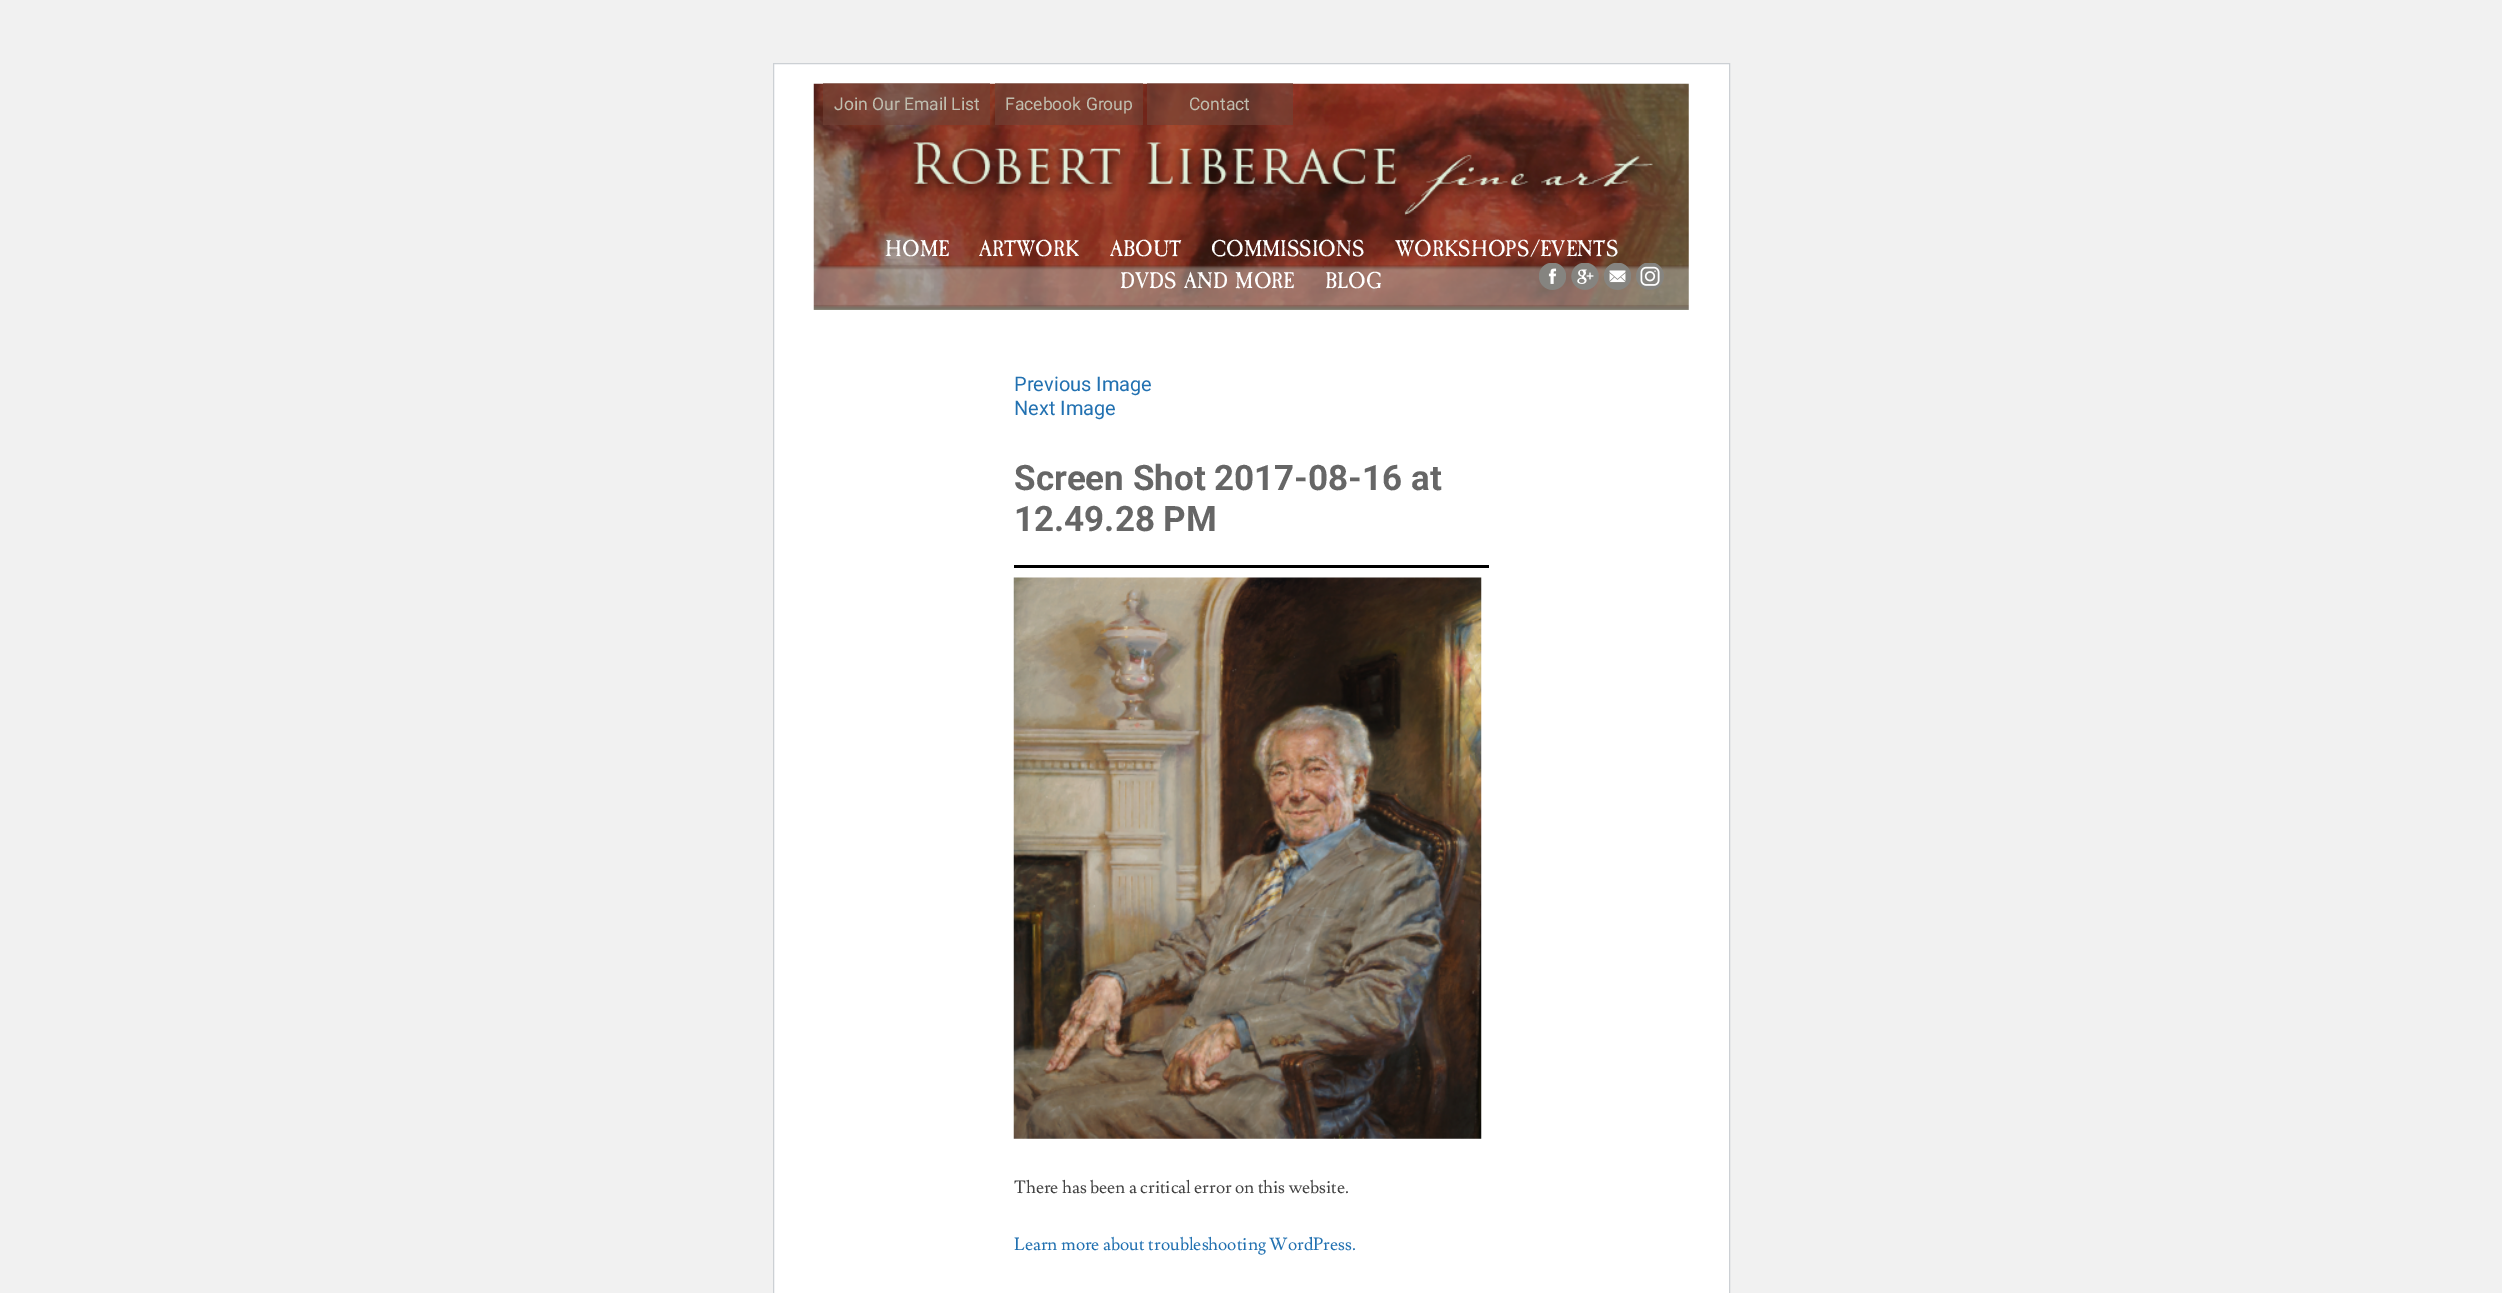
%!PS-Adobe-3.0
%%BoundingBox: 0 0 2502 1293
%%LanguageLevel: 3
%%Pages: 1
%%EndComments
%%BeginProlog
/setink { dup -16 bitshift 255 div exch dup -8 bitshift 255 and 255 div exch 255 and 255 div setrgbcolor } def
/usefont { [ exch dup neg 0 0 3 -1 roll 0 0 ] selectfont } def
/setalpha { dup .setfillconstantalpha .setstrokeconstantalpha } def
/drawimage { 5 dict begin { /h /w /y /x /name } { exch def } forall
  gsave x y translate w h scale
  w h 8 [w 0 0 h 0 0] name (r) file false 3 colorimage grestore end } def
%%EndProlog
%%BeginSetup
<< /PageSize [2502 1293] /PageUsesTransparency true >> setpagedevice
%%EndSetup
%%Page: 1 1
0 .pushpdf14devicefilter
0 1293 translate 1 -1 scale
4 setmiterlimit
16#F1F1F1 setink
0 0 2502 1293 rectfill
16#FFFFFF setink
773.5 63.5 moveto 1729.5 63.5 lineto 1729.5 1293.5 lineto 773.5 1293.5 lineto closepath gsave fill grestore
16#CCD0D4 setink
stroke
(img1.raw) 813 83 876 227 drawimage
0.65 setalpha
16#704236 setink
823 83 167 42 rectfill
/Roboto-Regular 17.5 usefont
1 setalpha
16#C0BEAF setink
834 110 moveto (Join Our Email List) show
0.65 setalpha
16#704236 setink
995 83 148 42 rectfill
1 setalpha
16#C0BEAF setink
1005 110 moveto (Facebook Group) show
0.65 setalpha
16#704236 setink
1147 83 146 42 rectfill
1 setalpha
16#C0BEAF setink
1189 110 moveto (Contact) show
/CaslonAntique-Regular 23.75 usefont
16#FFFFFF setink
[
    [(HOME) 885 256]
    [(ARTWORK) 979 256]
    [(ABOUT) 1110 256]
    [(COMMISSIONS) 1211 256]
    [(WORKSHOPS/EVENTS) 1395 256]
    [(DVDS AND MORE) 1120 288]
    [(BLOG) 1325 288]
] { aload pop moveto show } forall
(img2.raw) 1539 263 27 27 drawimage
(img3.raw) 1571 263 28 27 drawimage
(img4.raw) 1604 263 27 27 drawimage
(img5.raw) 1636 263 28 27 drawimage
/Roboto-Regular 20 usefont
16#2271B1 setink
1014 391 moveto (Previous Image) show
1014 415 moveto (Next Image) show
16#000000 setink
1014 565 475 3 rectfill
/Roboto-Bold 35 usefont
16#666666 setink
1014 490 moveto (Screen Shot 2017-08-16 at) show
1014 531 moveto (12.49.28 PM) show
(img6.raw) 1013 577 469 562 drawimage
/Lusitana-Regular 17.5 usefont
16#444444 setink
1014 1193 moveto (There has been a critical error on this website.) show
16#2271B1 setink
1014 1250 moveto (Learn more about troubleshooting WordPress.) show
.poppdf14devicefilter showpage
%%EOF
